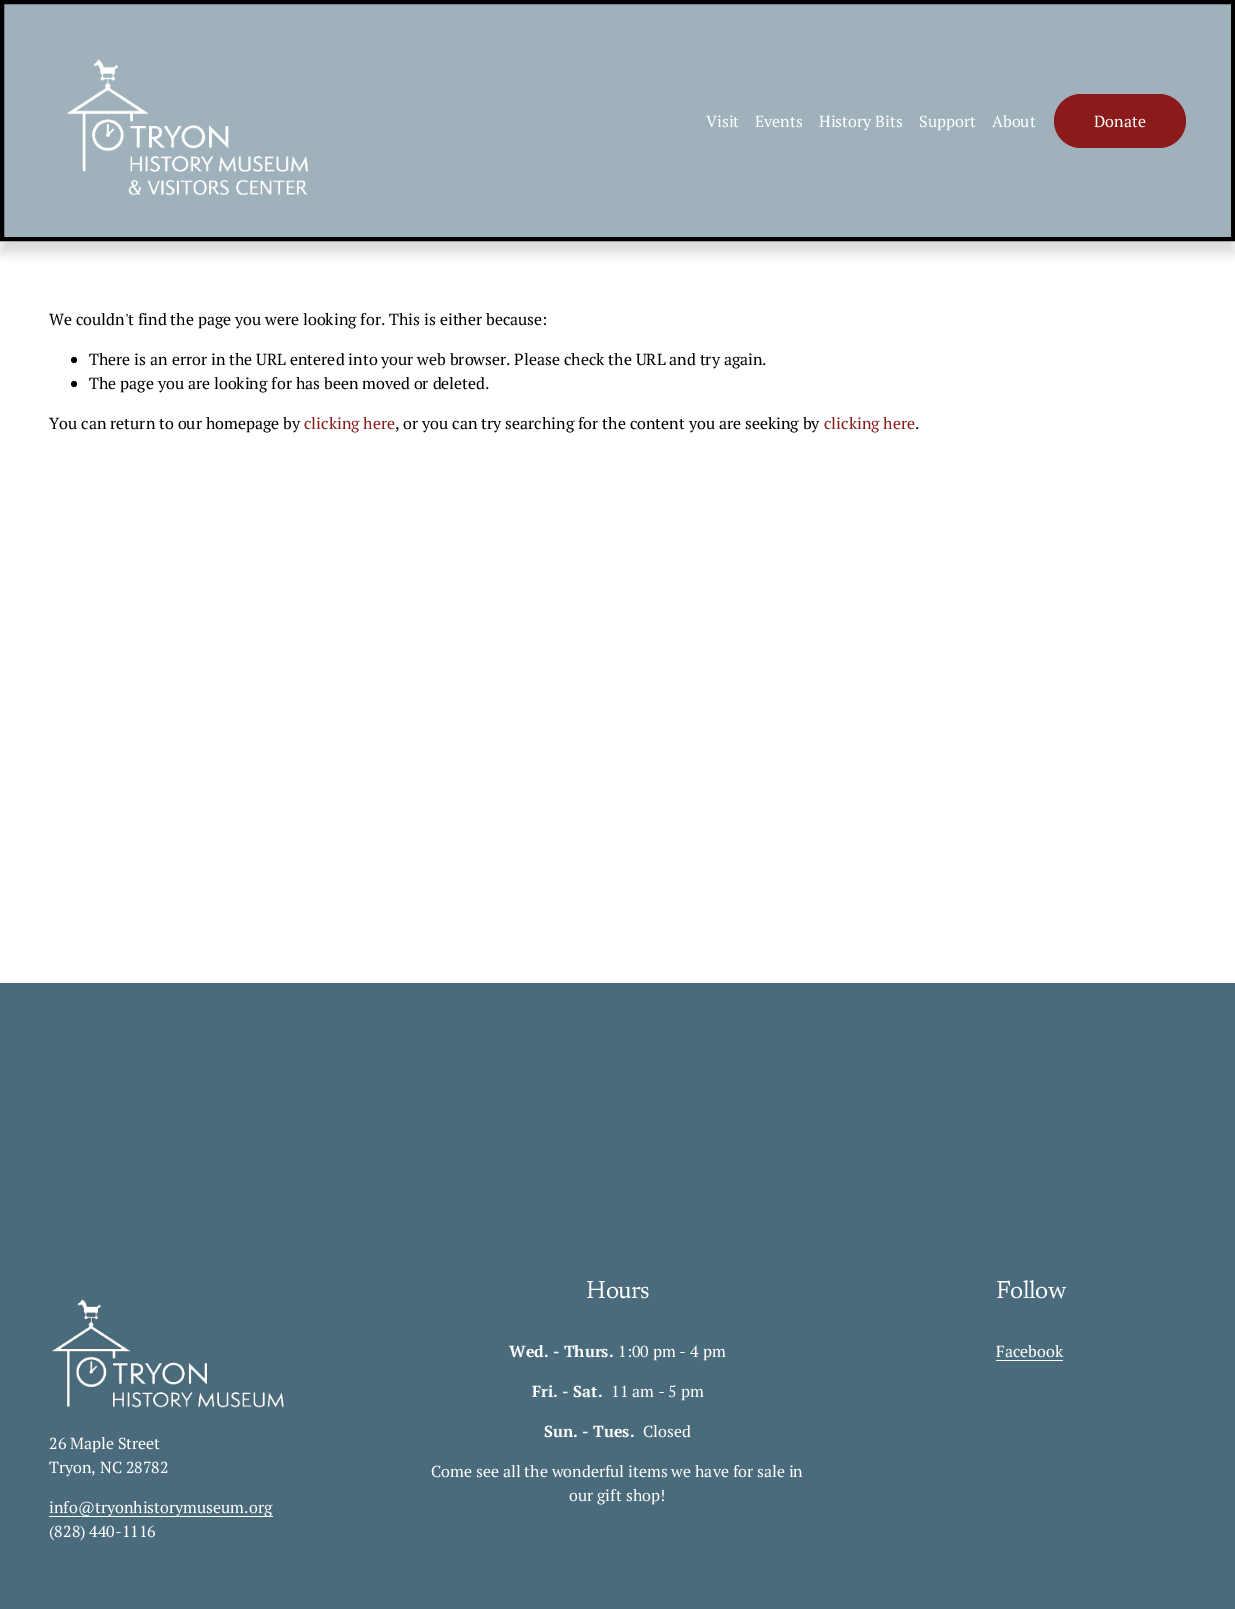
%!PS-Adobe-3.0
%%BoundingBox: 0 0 1235 1609
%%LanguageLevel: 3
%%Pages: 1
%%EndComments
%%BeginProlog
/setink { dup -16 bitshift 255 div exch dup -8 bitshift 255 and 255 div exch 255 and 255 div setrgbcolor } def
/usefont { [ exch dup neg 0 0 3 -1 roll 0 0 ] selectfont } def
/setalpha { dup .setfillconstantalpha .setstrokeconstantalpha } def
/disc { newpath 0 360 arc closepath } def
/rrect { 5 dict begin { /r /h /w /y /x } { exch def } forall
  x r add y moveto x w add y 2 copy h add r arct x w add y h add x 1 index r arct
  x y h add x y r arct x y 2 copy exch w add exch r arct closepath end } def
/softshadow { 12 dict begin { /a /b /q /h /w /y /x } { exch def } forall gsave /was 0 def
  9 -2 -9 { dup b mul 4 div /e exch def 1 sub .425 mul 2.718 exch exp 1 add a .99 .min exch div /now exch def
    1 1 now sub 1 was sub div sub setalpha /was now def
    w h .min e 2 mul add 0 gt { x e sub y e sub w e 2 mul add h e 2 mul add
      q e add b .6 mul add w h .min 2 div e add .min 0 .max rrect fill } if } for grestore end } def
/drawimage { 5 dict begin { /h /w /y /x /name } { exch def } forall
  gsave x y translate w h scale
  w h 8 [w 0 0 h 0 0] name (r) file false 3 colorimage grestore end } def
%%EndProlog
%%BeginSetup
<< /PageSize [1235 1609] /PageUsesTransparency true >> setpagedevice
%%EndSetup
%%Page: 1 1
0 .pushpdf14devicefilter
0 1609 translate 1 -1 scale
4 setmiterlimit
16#FFFFFF setink
0 0 1235 1609 rectfill
16#D9D9D9 setink
0 12 1235 241 0 6 1 softshadow
16#9FB1BA setink
2 2 moveto 1233 2 lineto 1233 239 lineto 2 239 lineto closepath gsave fill grestore
16#000000 setink
4 setlinewidth
stroke
(img1.raw) 66 59 243 137 drawimage
/PTSerif-Regular 16 usefont
16#FFFFFF setink
[
    [(Visit) 706 127]
    [(Events) 755 127]
    [(History Bits) 819 127]
    [(Support) 919 127]
    [(About) 992 127]
] { aload pop moveto show } forall
16#8B1A1A setink
1054 94 132 54 27 rrect fill
16#FFFFFF setink
1094 127 moveto (Donate) show
16#000000 setink
49 325 moveto (We couldn't find the page you were looking for. This is either because:) show
74 360 3 disc fill
89 365 moveto (There is an error in the URL entered into your web browser. Please check the URL and try again.) show
74 384 3 disc fill
89 389 moveto (The page you are looking for has been moved or deleted.) show
49 429 moveto (You can return to our homepage by) show
16#8B1A1A setink
304 429 moveto (clicking here) show
16#000000 setink
395 429 moveto (, or you can try searching for the content you are seeking by) show
16#8B1A1A setink
824 429 moveto (clicking here) show
16#000000 setink
915 429 moveto (.) show
16#4A6B7C setink
0 983 1235 626 rectfill
(img2.raw) 51 1299 234 109 drawimage
/Newsreader-Regular 25 usefont
16#FFFFFF setink
586 1298 moveto -0.5 0 (Hours) ashow
/PTSerif-Bold 16 usefont
509 1357 moveto (Wed. - Thurs.) show
/PTSerif-Regular 16 usefont
618 1357 moveto (1:00 pm - 4 pm) show
/PTSerif-Bold 16 usefont
532 1397 moveto (Fri. - Sat.) show
/PTSerif-Regular 16 usefont
611 1397 moveto (11 am - 5 pm) show
/PTSerif-Bold 16 usefont
544 1437 moveto (Sun. - Tues.) show
/PTSerif-Regular 16 usefont
[
    [(Closed) 643 1437]
    [(Come see all the wonderful items we have for sale in) 431 1477]
    [(our gift shop!) 569 1501]
] { aload pop moveto show } forall
/Newsreader-Regular 25 usefont
996 1298 moveto -0.5 0 (Follow) ashow
/PTSerif-Regular 16 usefont
996 1357 moveto (Facebook) show
996 1360 67 1 rectfill
49 1449 moveto (26 Maple Street) show
49 1473 moveto (Tryon, NC 28782) show
49 1516 224 1 rectfill
49 1513 moveto (info@tryonhistorymuseum.org) show
49 1537 moveto (\(828\) 440-1116) show
.poppdf14devicefilter showpage
%%EOF
